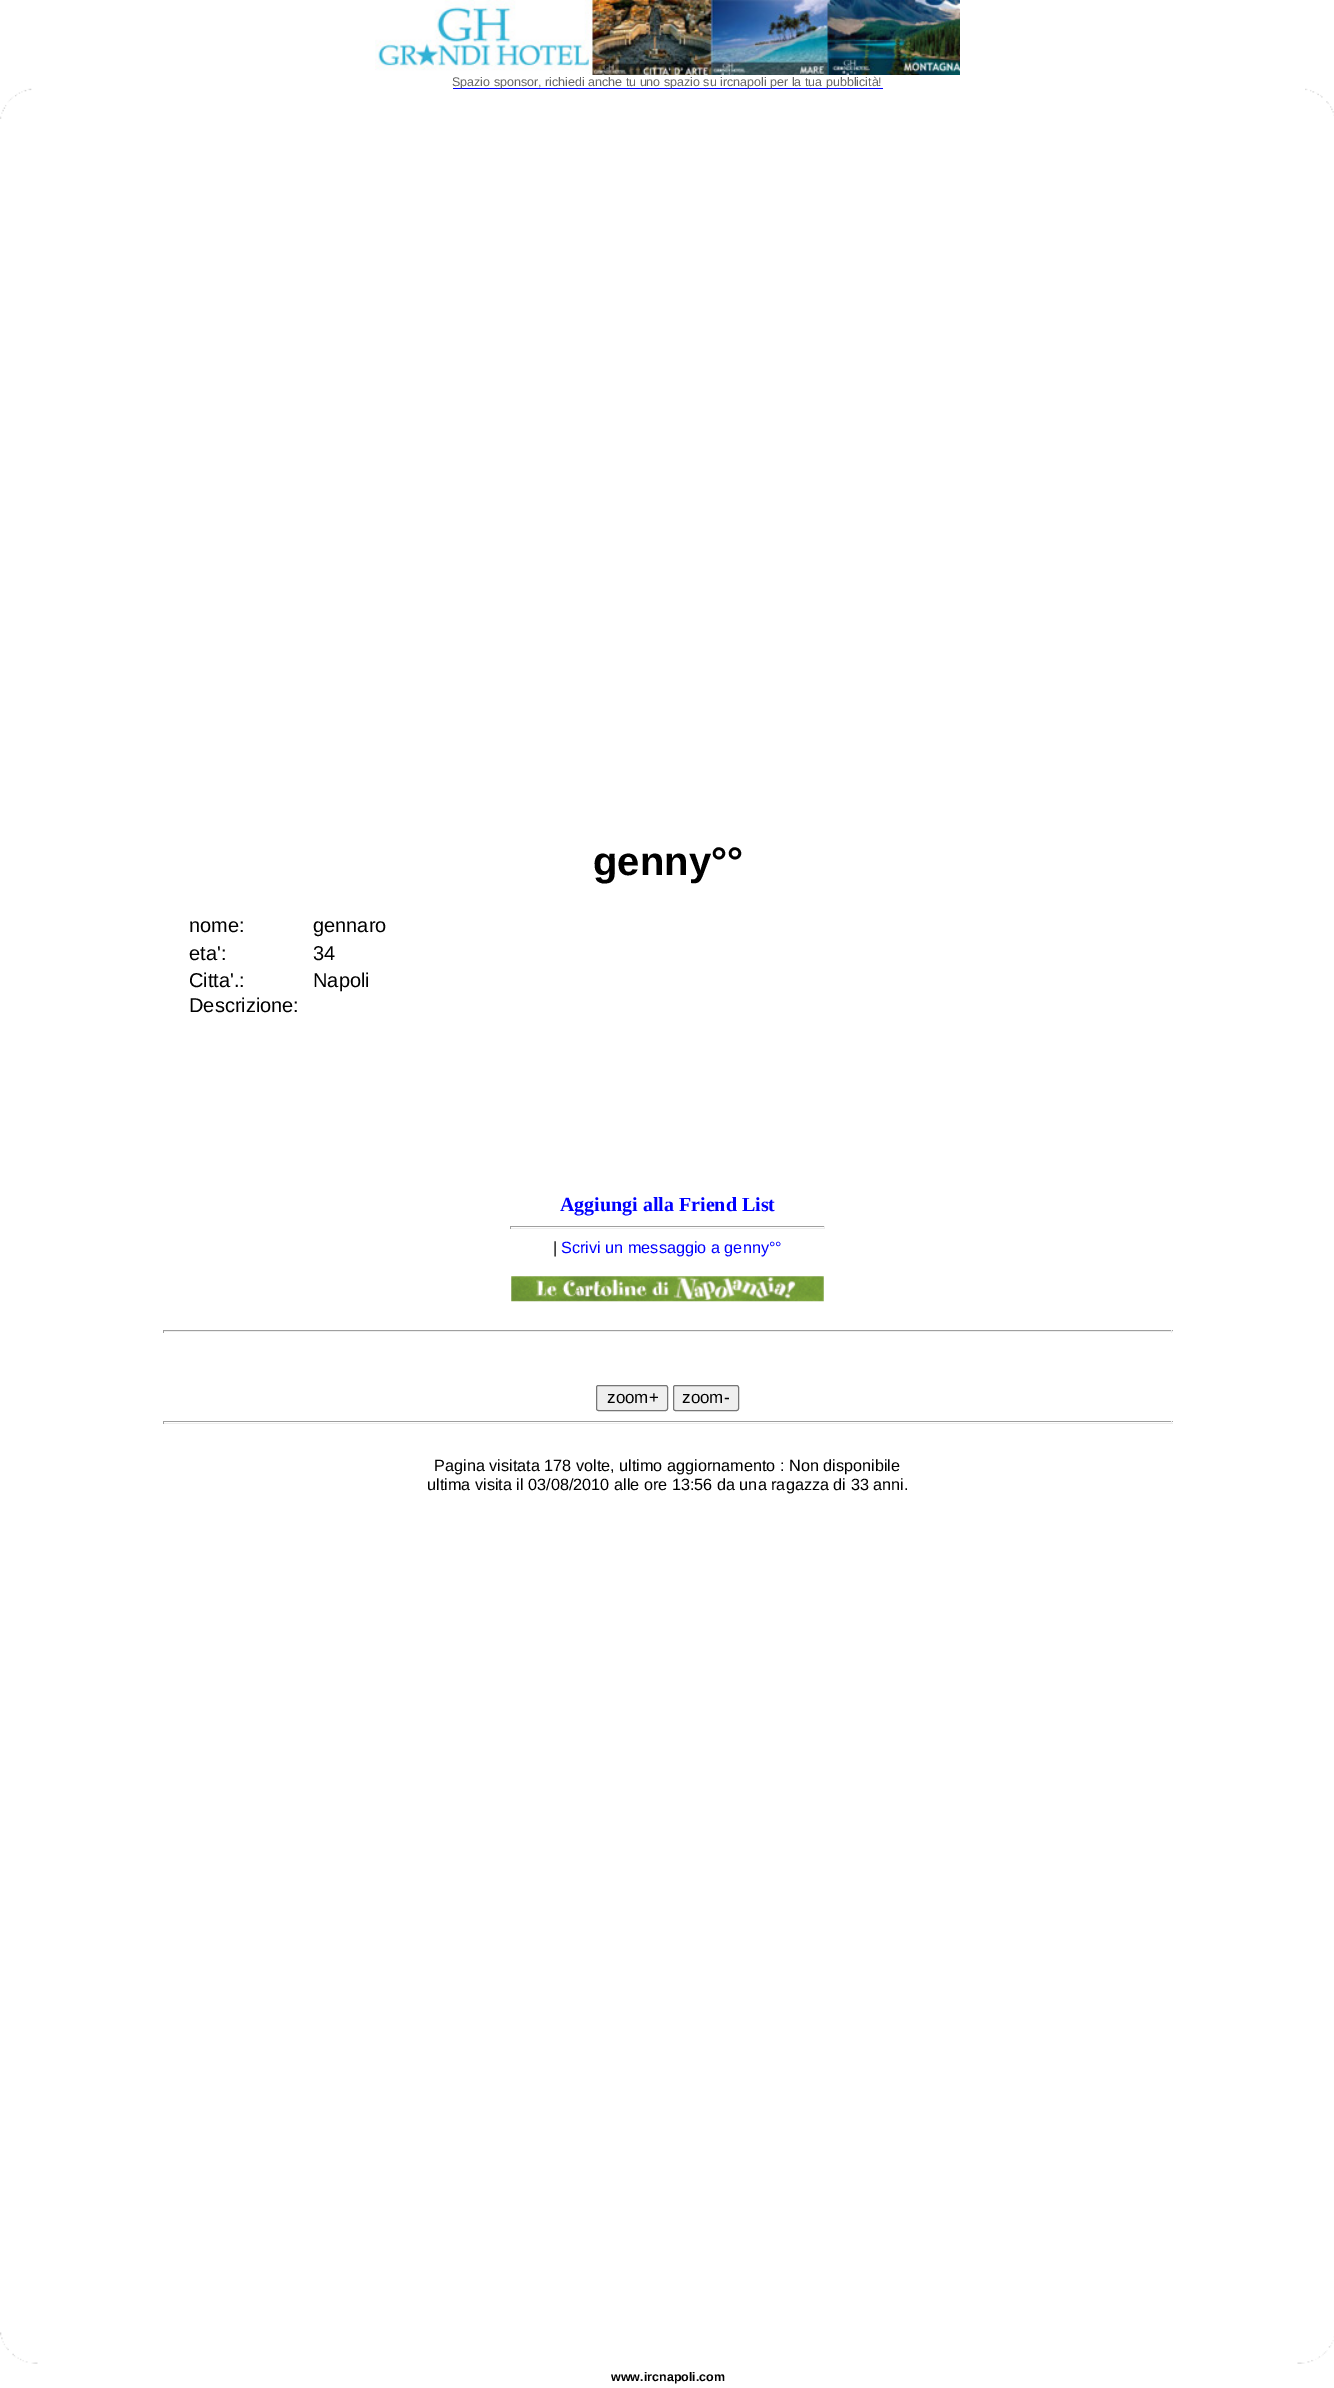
%!PS-Adobe-3.0
%%BoundingBox: 0 0 1334 2388
%%LanguageLevel: 3
%%Pages: 1
%%EndComments
%%BeginProlog
/setink { dup -16 bitshift 255 div exch dup -8 bitshift 255 and 255 div exch 255 and 255 div setrgbcolor } def
/usefont { [ exch dup neg 0 0 3 -1 roll 0 0 ] selectfont } def
/rrect { 5 dict begin { /r /h /w /y /x } { exch def } forall
  x r add y moveto x w add y 2 copy h add r arct x w add y h add x 1 index r arct
  x y h add x y r arct x y 2 copy exch w add exch r arct closepath end } def
/drawimage { 5 dict begin { /h /w /y /x /name } { exch def } forall
  gsave x y translate w h scale
  w h 8 [w 0 0 h 0 0] name (r) file false 3 colorimage grestore end } def
%%EndProlog
%%BeginSetup
<< /PageSize [1334 2388] >> setpagedevice
%%EndSetup
%%Page: 1 1
0 2388 translate 1 -1 scale
4 setmiterlimit
16#FFFFFF setink
0 0 1334 2388 rectfill
(img1.raw) 375 0 585 75 drawimage
16#0000FF setink
453 88 430 1 rectfill
/LiberationSans-Regular 12.5 usefont
16#666666 setink
452 86 moveto (Spazio sponsor, richiedi anche tu uno spazio su ircnapoli per la tua pubblicità!) show
(img2.raw) 0 88 32 31 drawimage
(img3.raw) 1305 88 29 28 drawimage
/LiberationSans-Bold 40 usefont
16#000000 setink
593 875 moveto (genny°°) show
/LiberationSans-Regular 20 usefont
[
    [(nome:) 189 932]
    [(gennaro) 313 932]
    [(eta':) 189 960]
    [(34) 313 960]
    [(Citta'.:) 189 987]
    [(Napoli) 313 987]
    [(Descrizione:) 189 1012]
] { aload pop moveto show } forall
/LiberationSerif-Bold 20 usefont
16#0000FF setink
560 1211 moveto (Aggiungi alla Friend List) show
[
    [510 1226 315 1 16#9F9F9F]
    [824 1226 1 3 16#EEEEEE]
    [510 1228 315 1 16#EEEEEE]
    [510 1226 1 3 16#9F9F9F]
] { aload pop setink rectfill } forall
/LiberationSans-Regular 16.25 usefont
16#000000 setink
553 1253 moveto (|) show
16#0000FF setink
561 1253 moveto (Scrivi un messaggio a genny°°) show
(img4.raw) 511 1276 313 26 drawimage
[
    [163 1330 1010 1 16#9F9F9F]
    [1171 1330 1 3 16#EEEEEE]
    [163 1331 1010 1 16#EEEEEE]
    [163 1330 1 3 16#9F9F9F]
] { aload pop setink rectfill } forall
16#EFEFEF setink
596.5 1385.5 71 25 2 rrect gsave fill grestore
16#767676 setink
stroke
/LiberationSans-Regular 17 usefont
16#000000 setink
607 1403 moveto (zoom+) show
16#EFEFEF setink
673.5 1385.5 65 25 2 rrect gsave fill grestore
16#767676 setink
stroke
16#000000 setink
682 1403 moveto (zoom-) show
[
    [163 1421 1010 1 16#9F9F9F]
    [1171 1421 1 3 16#EEEEEE]
    [163 1423 1010 1 16#EEEEEE]
    [163 1421 1 3 16#9F9F9F]
] { aload pop setink rectfill } forall
/LiberationSans-Regular 16.25 usefont
16#000000 setink
434 1471 moveto (Pagina visitata 178 volte, ultimo aggiornamento : Non disponibile) show
427 1490 moveto (ultima visita il 03/08/2010 alle ore 13:56 da una ragazza di 33 anni.) show
(img5.raw) 0 2332 38 32 drawimage
(img6.raw) 1297 2336 37 28 drawimage
/LiberationSans-Bold 12.5 usefont
611 2381 moveto (www.ircnapoli.com) show
showpage
%%EOF
